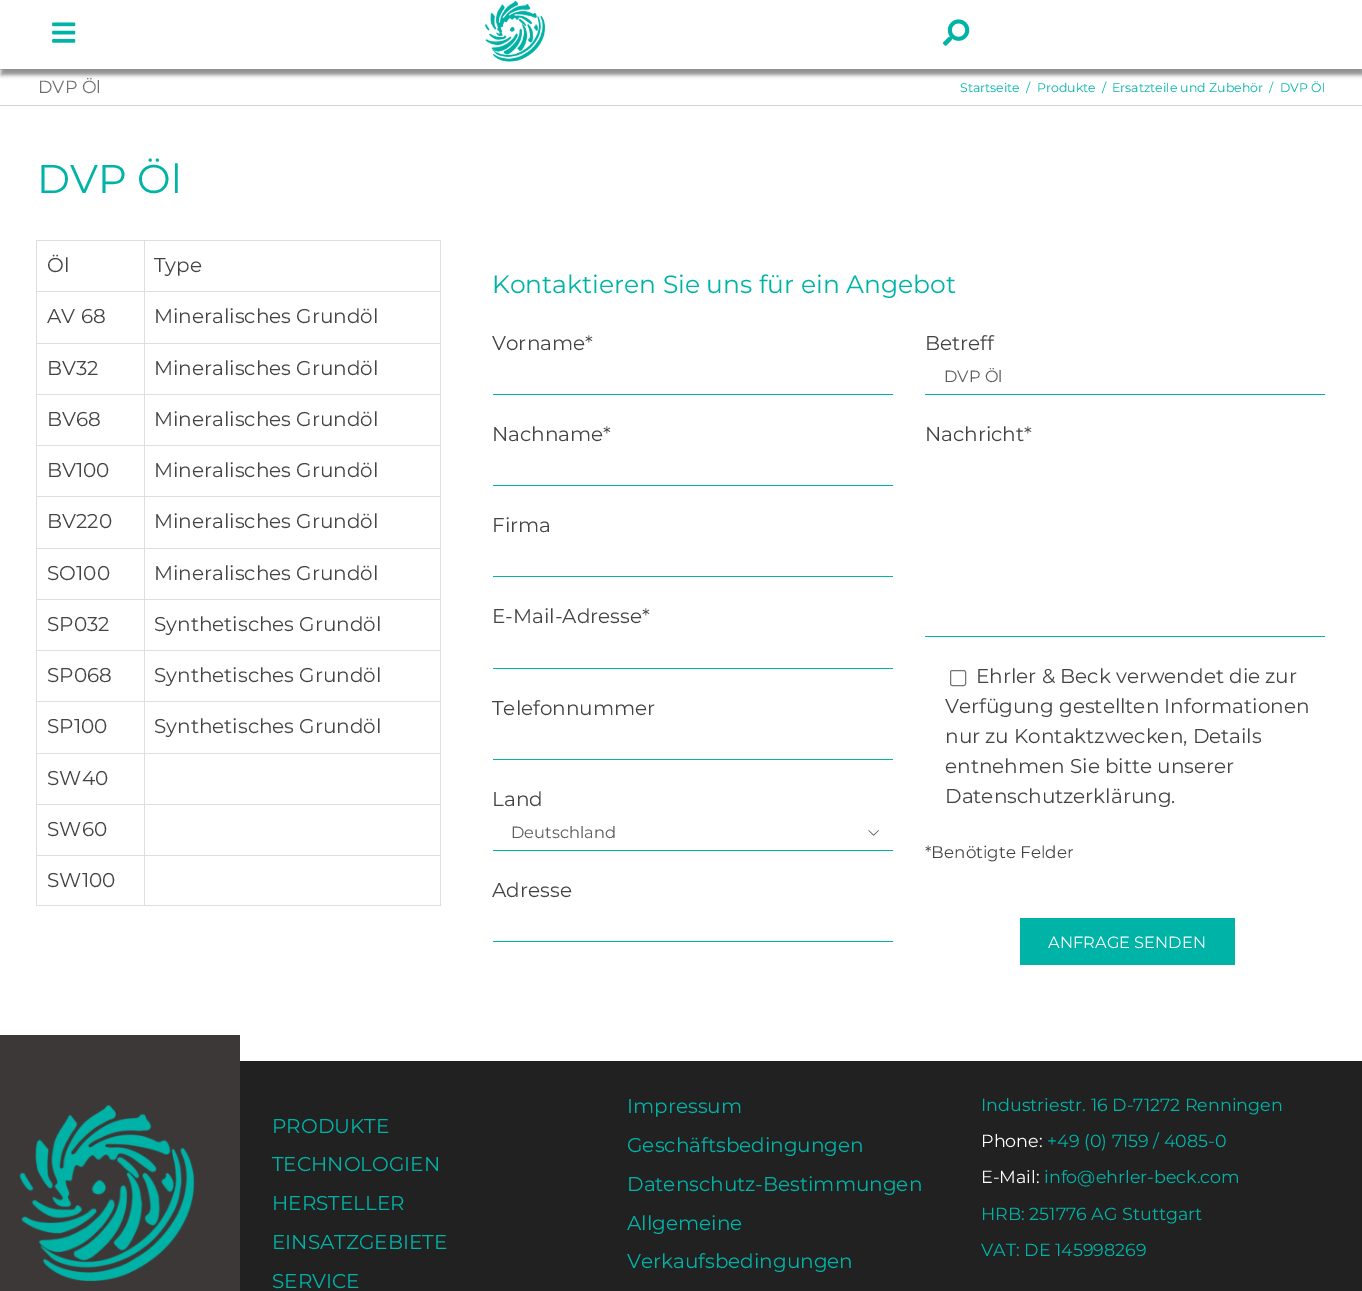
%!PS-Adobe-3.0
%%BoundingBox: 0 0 1362 1291
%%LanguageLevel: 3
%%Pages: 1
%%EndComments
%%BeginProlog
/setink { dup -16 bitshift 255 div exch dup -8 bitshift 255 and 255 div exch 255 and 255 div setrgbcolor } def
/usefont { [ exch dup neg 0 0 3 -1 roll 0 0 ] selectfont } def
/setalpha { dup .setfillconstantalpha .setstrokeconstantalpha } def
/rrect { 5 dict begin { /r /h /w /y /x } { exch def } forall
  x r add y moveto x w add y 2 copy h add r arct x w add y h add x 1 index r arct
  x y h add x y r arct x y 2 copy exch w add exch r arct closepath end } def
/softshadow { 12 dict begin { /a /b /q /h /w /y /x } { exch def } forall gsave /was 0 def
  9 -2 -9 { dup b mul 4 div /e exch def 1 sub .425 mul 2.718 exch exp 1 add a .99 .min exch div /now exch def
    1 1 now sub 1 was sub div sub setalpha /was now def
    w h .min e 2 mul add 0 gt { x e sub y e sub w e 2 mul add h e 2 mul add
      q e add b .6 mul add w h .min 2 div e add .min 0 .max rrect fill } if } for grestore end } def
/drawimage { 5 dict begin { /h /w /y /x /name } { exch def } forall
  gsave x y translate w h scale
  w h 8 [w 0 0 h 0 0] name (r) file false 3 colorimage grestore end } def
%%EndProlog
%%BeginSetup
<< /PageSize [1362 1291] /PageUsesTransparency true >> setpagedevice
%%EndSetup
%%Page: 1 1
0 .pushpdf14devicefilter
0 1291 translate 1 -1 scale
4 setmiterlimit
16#FFFFFF setink
0 0 1362 1291 rectfill
16#D2D3D4 setink
0 69 1362 1 rectfill
gsave
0 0 moveto 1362 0 lineto 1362 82 lineto 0 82 lineto closepath 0 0 moveto 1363 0 lineto 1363 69 lineto 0 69 lineto closepath eoclip newpath
16#8E8E8E setink
1 6 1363 69 0 2 1 softshadow
grestore
(img1.raw) 52 22 24 21 drawimage
(img2.raw) 485 0 61 62 drawimage
(img3.raw) 942 19 28 27 drawimage
0 105 1362 1 rectfill
/Montserrat-Regular 17.5 usefont
16#707070 setink
38 93 moveto (DVP Öl) show
/Montserrat-Regular 12.5 usefont
16#00B3A7 setink
[
    [(Startseite) 960 92]
    [(/) 1026 92]
    [(Produkte) 1037 92]
    [(/) 1102 92]
    [(Ersatzteile und Zubehör) 1112 92]
    [(/) 1269 92]
    [(DVP Öl) 1280 92]
] { aload pop moveto show } forall
/Montserrat-Regular 40 usefont
37 193 moveto (DVP Öl) show
[
    [144 240 297 1 16#E0DEDE]
    [144 291 297 1 16#E0DEDE]
    [144 343 297 1 16#E0DEDE]
    [144 394 297 1 16#E0DEDE]
    [144 445 297 1 16#E0DEDE]
    [144 496 297 1 16#E0DEDE]
    [144 548 297 1 16#E0DEDE]
    [144 599 297 1 16#E0DEDE]
    [144 650 297 1 16#E0DEDE]
    [144 701 297 1 16#E0DEDE]
    [144 753 297 1 16#E0DEDE]
    [144 804 297 1 16#E0DEDE]
    [144 855 297 1 16#E0DEDE]
    [440 855 1 51 16#E0DEDE]
    [144 905 297 1 16#E0DEDE]
    [144 855 1 51 16#E0DEDE]
    [36 855 109 1 16#E0DEDE]
    [144 804 1 52 16#E0DEDE]
    [36 804 109 1 16#E0DEDE]
    [144 753 1 52 16#E0DEDE]
    [36 753 109 1 16#E0DEDE]
    [144 701 1 53 16#E0DEDE]
    [36 701 109 1 16#E0DEDE]
    [144 650 1 53 16#E0DEDE]
    [36 650 109 1 16#E0DEDE]
    [144 599 1 52 16#E0DEDE]
    [36 599 109 1 16#E0DEDE]
    [144 548 1 52 16#E0DEDE]
    [36 548 109 1 16#E0DEDE]
    [144 496 1 53 16#E0DEDE]
    [36 496 109 1 16#E0DEDE]
    [144 445 1 53 16#E0DEDE]
    [36 445 109 1 16#E0DEDE]
    [144 394 1 52 16#E0DEDE]
    [36 394 109 1 16#E0DEDE]
    [144 343 1 52 16#E0DEDE]
    [36 343 109 1 16#E0DEDE]
    [144 291 1 53 16#E0DEDE]
    [36 291 109 1 16#E0DEDE]
    [144 240 1 53 16#E0DEDE]
    [36 240 109 1 16#E0DEDE]
    [36 905 109 1 16#E0DEDE]
    [36 855 1 51 16#E0DEDE]
    [36 804 1 52 16#E0DEDE]
    [36 753 1 52 16#E0DEDE]
    [36 701 1 53 16#E0DEDE]
    [36 650 1 53 16#E0DEDE]
    [36 599 1 52 16#E0DEDE]
    [36 548 1 52 16#E0DEDE]
    [36 496 1 53 16#E0DEDE]
    [36 445 1 53 16#E0DEDE]
    [36 394 1 52 16#E0DEDE]
    [36 343 1 52 16#E0DEDE]
    [36 291 1 53 16#E0DEDE]
    [36 240 1 53 16#E0DEDE]
] { aload pop setink rectfill } forall
/Montserrat-Regular 20 usefont
16#444444 setink
47 272 moveto (Öl) show
[
    [440 804 1 52 16#E0DEDE]
    [440 753 1 52 16#E0DEDE]
    [440 701 1 53 16#E0DEDE]
    [440 650 1 53 16#E0DEDE]
    [440 599 1 52 16#E0DEDE]
    [440 548 1 52 16#E0DEDE]
    [440 496 1 53 16#E0DEDE]
    [440 445 1 53 16#E0DEDE]
    [440 394 1 52 16#E0DEDE]
    [440 343 1 52 16#E0DEDE]
    [440 291 1 53 16#E0DEDE]
    [440 240 1 53 16#E0DEDE]
] { aload pop setink rectfill } forall
16#444444 setink
[
    [(Type) 154 272]
    [(AV 68) 47 323]
    [(Mineralisches Grundöl) 154 323]
    [(BV32) 47 375]
    [(Mineralisches Grundöl) 154 375]
    [(BV68) 47 426]
    [(Mineralisches Grundöl) 154 426]
    [(BV100) 47 477]
    [(Mineralisches Grundöl) 154 477]
    [(BV220) 47 528]
    [(Mineralisches Grundöl) 154 528]
    [(SO100) 47 580]
    [(Mineralisches Grundöl) 154 580]
    [(SP032) 47 631]
    [(Synthetisches Grundöl) 154 631]
    [(SP068) 47 682]
    [(Synthetisches Grundöl) 154 682]
    [(SP100) 47 733]
    [(Synthetisches Grundöl) 154 733]
    [(SW40) 47 785]
    [(SW60) 47 836]
    [(SW100) 47 887]
] { aload pop moveto show } forall
/Montserrat-Regular 25 usefont
16#00B3A7 setink
492 293 moveto (Kontaktieren Sie uns für ein Angebot) show
/Montserrat-Regular 20 usefont
16#444444 setink
492 350 moveto (Vorname*) show
16#00B3A7 setink
493 394 400 1 rectfill
16#444444 setink
492 441 moveto (Nachname*) show
16#00B3A7 setink
493 485 400 1 rectfill
16#444444 setink
492 532 moveto (Firma) show
16#00B3A7 setink
493 576 400 1 rectfill
16#444444 setink
492 623 moveto (E-Mail-Adresse*) show
16#00B3A7 setink
493 668 400 1 rectfill
16#444444 setink
492 715 moveto (Telefonnummer) show
16#00B3A7 setink
493 759 400 1 rectfill
16#444444 setink
492 806 moveto (Land) show
16#00B3A7 setink
493 850 400 1 rectfill
/Montserrat-Regular 16.25 usefont
16#5E5B5B setink
511 838 moveto (Deutschland) show
(img4.raw) 868 830 11 6 drawimage
/Montserrat-Regular 20 usefont
16#444444 setink
492 897 moveto (Adresse) show
16#00B3A7 setink
493 941 400 1 rectfill
16#444444 setink
925 350 moveto (Betreff) show
16#00B3A7 setink
925 394 400 1 rectfill
/Montserrat-Regular 16.25 usefont
16#5E5B5B setink
944 382 moveto (DVP Öl) show
/Montserrat-Regular 20 usefont
16#444444 setink
925 441 moveto (Nachricht*) show
16#00B3A7 setink
925 636 400 1 rectfill
16#767676 setink
950.5 670.5 15 15 2 rrect stroke
16#444444 setink
[
    [(Ehrler & Beck verwendet die zur) 976 683]
    [(Verfügung gestellten Informationen) 945 713]
    [(nur zu Kontaktzwecken, Details) 945 743]
    [(entnehmen Sie bitte unserer) 945 773]
    [(Datenschutzerklärung.) 945 803]
] { aload pop moveto show } forall
/Montserrat-Regular 16.75 usefont
925 858 moveto (*Benötigte Felder) show
16#00B3A7 setink
1020 918 215 47 rectfill
/Montserrat-Regular 16.25 usefont
16#FFFFFF setink
1048 948 moveto (ANFRAGE SENDEN) show
16#212121 setink
240 1061 1122 230 rectfill
16#3D3838 setink
0 1035 240 256 rectfill
(img5.raw) 19 1105 176 177 drawimage
/Montserrat-Regular 20 usefont
16#00B3A7 setink
[
    [(PRODUKTE) 272 1133]
    [(TECHNOLOGIEN) 272 1171]
    [(HERSTELLER) 272 1210]
    [(EINSATZGEBIETE) 272 1249]
    [(SERVICE) 272 1288]
    [(Impressum) 627 1113]
    [(Geschäftsbedingungen) 627 1152]
    [(Datenschutz-Bestimmungen) 627 1191]
    [(Allgemeine) 627 1230]
    [(Verkaufsbedingungen) 627 1268]
] { aload pop moveto show } forall
/Montserrat-Regular 17.5 usefont
981 1111 moveto (Industriestr. 16 D-71272 Renningen) show
16#FFFFFF setink
981 1147 moveto (Phone:) show
16#00B3A7 setink
1047 1147 moveto (+49 \(0\) 7159 / 4085-0) show
16#FFFFFF setink
981 1183 moveto (E-Mail:) show
16#00B3A7 setink
[
    [(info@ehrler-beck.com) 1044 1183]
    [(HRB: 251776 AG Stuttgart) 981 1220]
    [(VAT: DE 145998269) 981 1256]
] { aload pop moveto show } forall
.poppdf14devicefilter showpage
%%EOF
